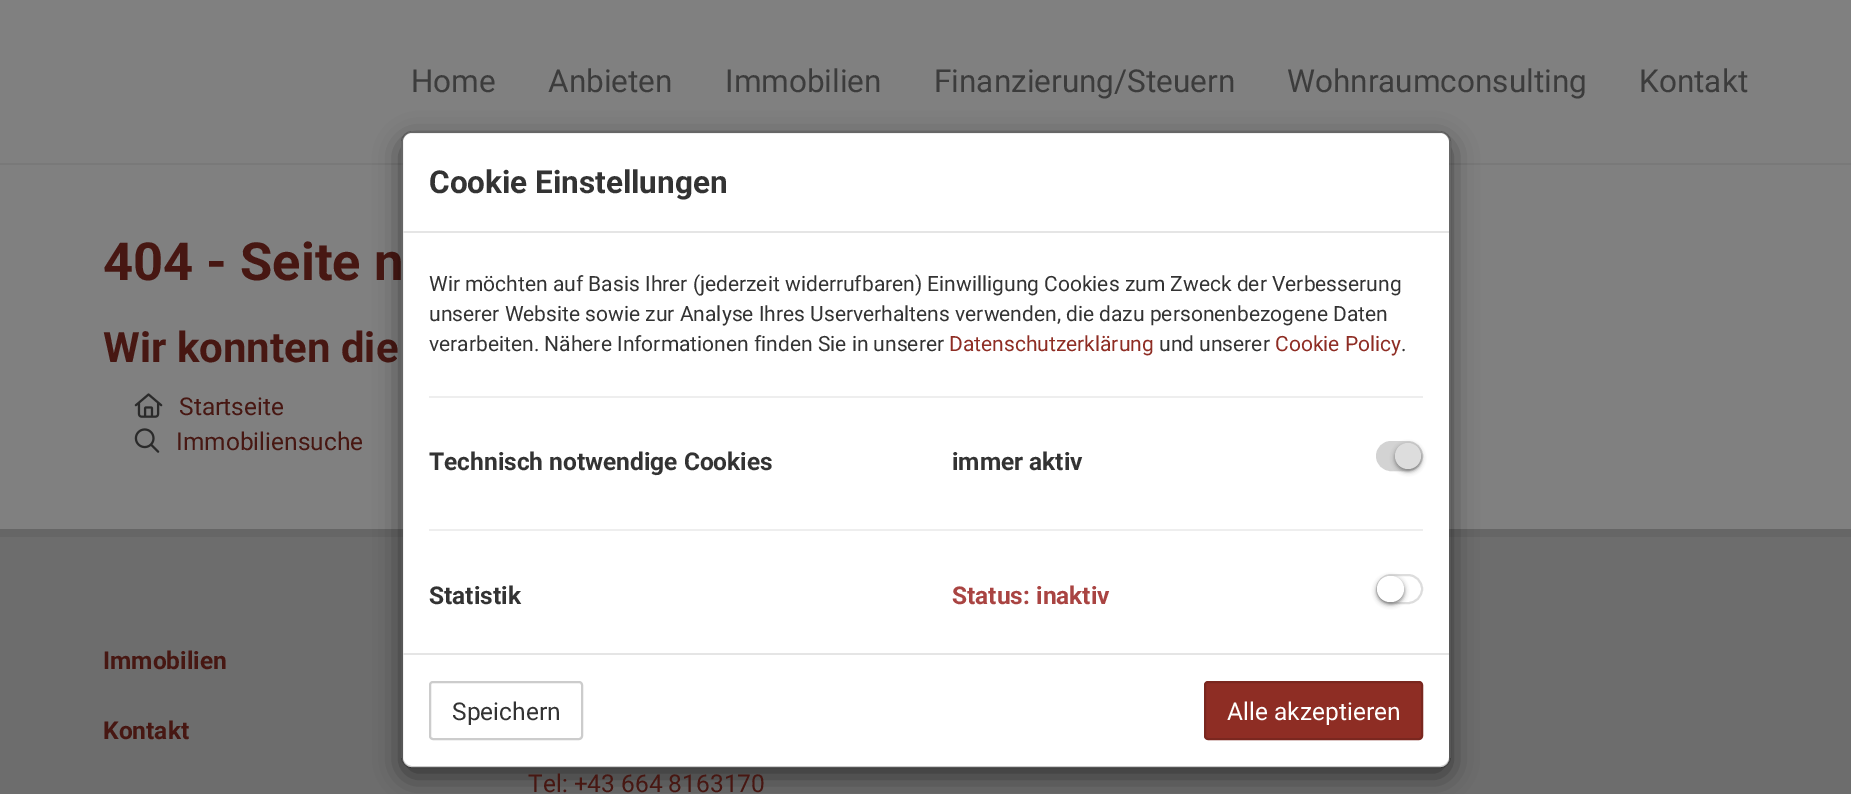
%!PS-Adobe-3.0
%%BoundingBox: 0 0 1851 794
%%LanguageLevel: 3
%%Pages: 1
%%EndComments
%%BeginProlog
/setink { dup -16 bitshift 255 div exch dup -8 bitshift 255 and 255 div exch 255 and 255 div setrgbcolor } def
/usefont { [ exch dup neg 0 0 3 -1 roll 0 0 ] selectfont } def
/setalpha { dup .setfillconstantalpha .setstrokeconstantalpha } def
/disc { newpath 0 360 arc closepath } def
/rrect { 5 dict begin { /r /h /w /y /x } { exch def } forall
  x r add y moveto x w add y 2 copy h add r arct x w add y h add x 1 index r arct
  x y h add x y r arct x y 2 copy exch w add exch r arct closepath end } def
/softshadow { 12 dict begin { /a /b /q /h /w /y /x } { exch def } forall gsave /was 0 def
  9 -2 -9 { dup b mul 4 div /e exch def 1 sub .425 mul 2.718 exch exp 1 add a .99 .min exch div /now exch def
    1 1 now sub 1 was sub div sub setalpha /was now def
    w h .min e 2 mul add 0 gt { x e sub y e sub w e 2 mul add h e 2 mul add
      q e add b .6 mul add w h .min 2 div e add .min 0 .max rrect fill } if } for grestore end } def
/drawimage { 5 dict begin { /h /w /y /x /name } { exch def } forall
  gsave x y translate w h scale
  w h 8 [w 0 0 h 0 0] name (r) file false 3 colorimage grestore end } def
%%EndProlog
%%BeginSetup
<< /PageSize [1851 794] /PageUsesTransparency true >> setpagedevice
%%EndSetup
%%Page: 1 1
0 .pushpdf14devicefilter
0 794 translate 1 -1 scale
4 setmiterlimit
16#808080 setink
0 0 1851 794 rectfill
16#797979 setink
0 163 1851 2 rectfill
/Roboto-Regular 31.5 usefont
16#3C3C3C setink
[
    [(Home) 411 92]
    [(Anbieten) 548 92]
    [(Immobilien) 725 92]
    [(Finanzierung/Steuern) 934 92]
    [(Wohnraumconsulting) 1287 92]
    [(Kontakt) 1639 92]
] { aload pop moveto show } forall
/Roboto-Bold 52.5 usefont
16#471712 setink
103 280 moveto (404 - Seite n) show
/Roboto-Bold 42 usefont
103 362 moveto (Wir konnten die) show
(img1.raw) 134 393 29 25 drawimage
/Roboto-Regular 24.5 usefont
179 415 moveto (Startseite) show
(img2.raw) 134 428 26 25 drawimage
176 450 moveto (Immobiliensuche) show
16#6D6D6D setink
0 537 1851 257 rectfill
16#666666 setink
0 529 1851 8 rectfill
gsave
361 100 moveto 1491 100 lineto 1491 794 lineto 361 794 lineto closepath 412 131 moveto 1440 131 lineto 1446 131 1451 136 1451 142 curveto 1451 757 lineto 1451 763 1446 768 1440 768 curveto 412 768 lineto 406 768 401 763 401 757 curveto 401 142 lineto 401 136 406 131 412 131 curveto closepath eoclip newpath
16#000000 setink
401 140 1050 637 11 13 0.5 softshadow
grestore
16#FFFFFF setink
403 133 1046 634 9 rrect fill
0.2 setalpha
16#000000 setink
2 setlinewidth
402 132 1048 635 10 rrect stroke
1 setalpha
16#E5E5E5 setink
403 231 1046 2 rectfill
/Roboto-Bold 31.5 usefont
16#333333 setink
429 193 moveto (Cookie Einstellungen) show
/Roboto-Regular 21 usefont
[
    [(Wir möchten auf Basis Ihrer \(jederzeit widerrufbaren\) Einwilligung Cookies zum Zweck der Verbesserung) 429 291]
    [(unserer Website sowie zur Analyse Ihres Userverhaltens verwenden, die dazu personenbezogene Daten) 429 321]
    [(verarbeiten. Nähere Informationen finden Sie in unserer) 429 351]
] { aload pop moveto show } forall
16#8E2D24 setink
949 351 moveto (Datenschutzerklärung) show
16#333333 setink
1159 351 moveto (und unserer) show
16#8E2D24 setink
1275 351 moveto (Cookie Policy) show
16#333333 setink
1401 351 moveto (.) show
16#EEEEEE setink
429 396 994 2 rectfill
/Roboto-Bold 24.5 usefont
16#333333 setink
429 470 moveto (Technisch notwendige Cookies) show
952 470 moveto (immer aktiv) show
16#D3D3D3 setink
1377 442 45 28 14 rrect gsave fill grestore
stroke
16#777777 setink
1395 445 26 26 13 2.5 1 softshadow
16#DDDDDD setink
1408 456 13 disc fill
16#EEEEEE setink
429 529 994 2 rectfill
16#333333 setink
429 604 moveto (Statistik) show
16#A94442 setink
952 604 moveto (Status: inaktiv) show
16#DDDDDD setink
1377 575 45 28 14 rrect stroke
16#777777 setink
1377 578 27 26 13 2.5 1 softshadow
16#FFFFFF setink
1377 576 27 26 13 rrect fill
16#E5E5E5 setink
403 653 1046 2 rectfill
16#CCCCCC setink
430 682 152 57 3 rrect stroke
/Roboto-Regular 24.5 usefont
16#333333 setink
452 720 moveto (Speichern) show
16#8E2D24 setink
1205 682 217 57 3 rrect gsave fill grestore
16#7A271F setink
stroke
16#FFFFFF setink
1227 720 moveto (Alle akzeptieren) show
/Roboto-Bold 24.5 usefont
16#471712 setink
103 669 moveto (Immobilien) show
103 739 moveto (Kontakt) show
/Roboto-Regular 24.5 usefont
528 792 moveto (Tel: +43 664 8163170) show
.poppdf14devicefilter showpage
%%EOF
